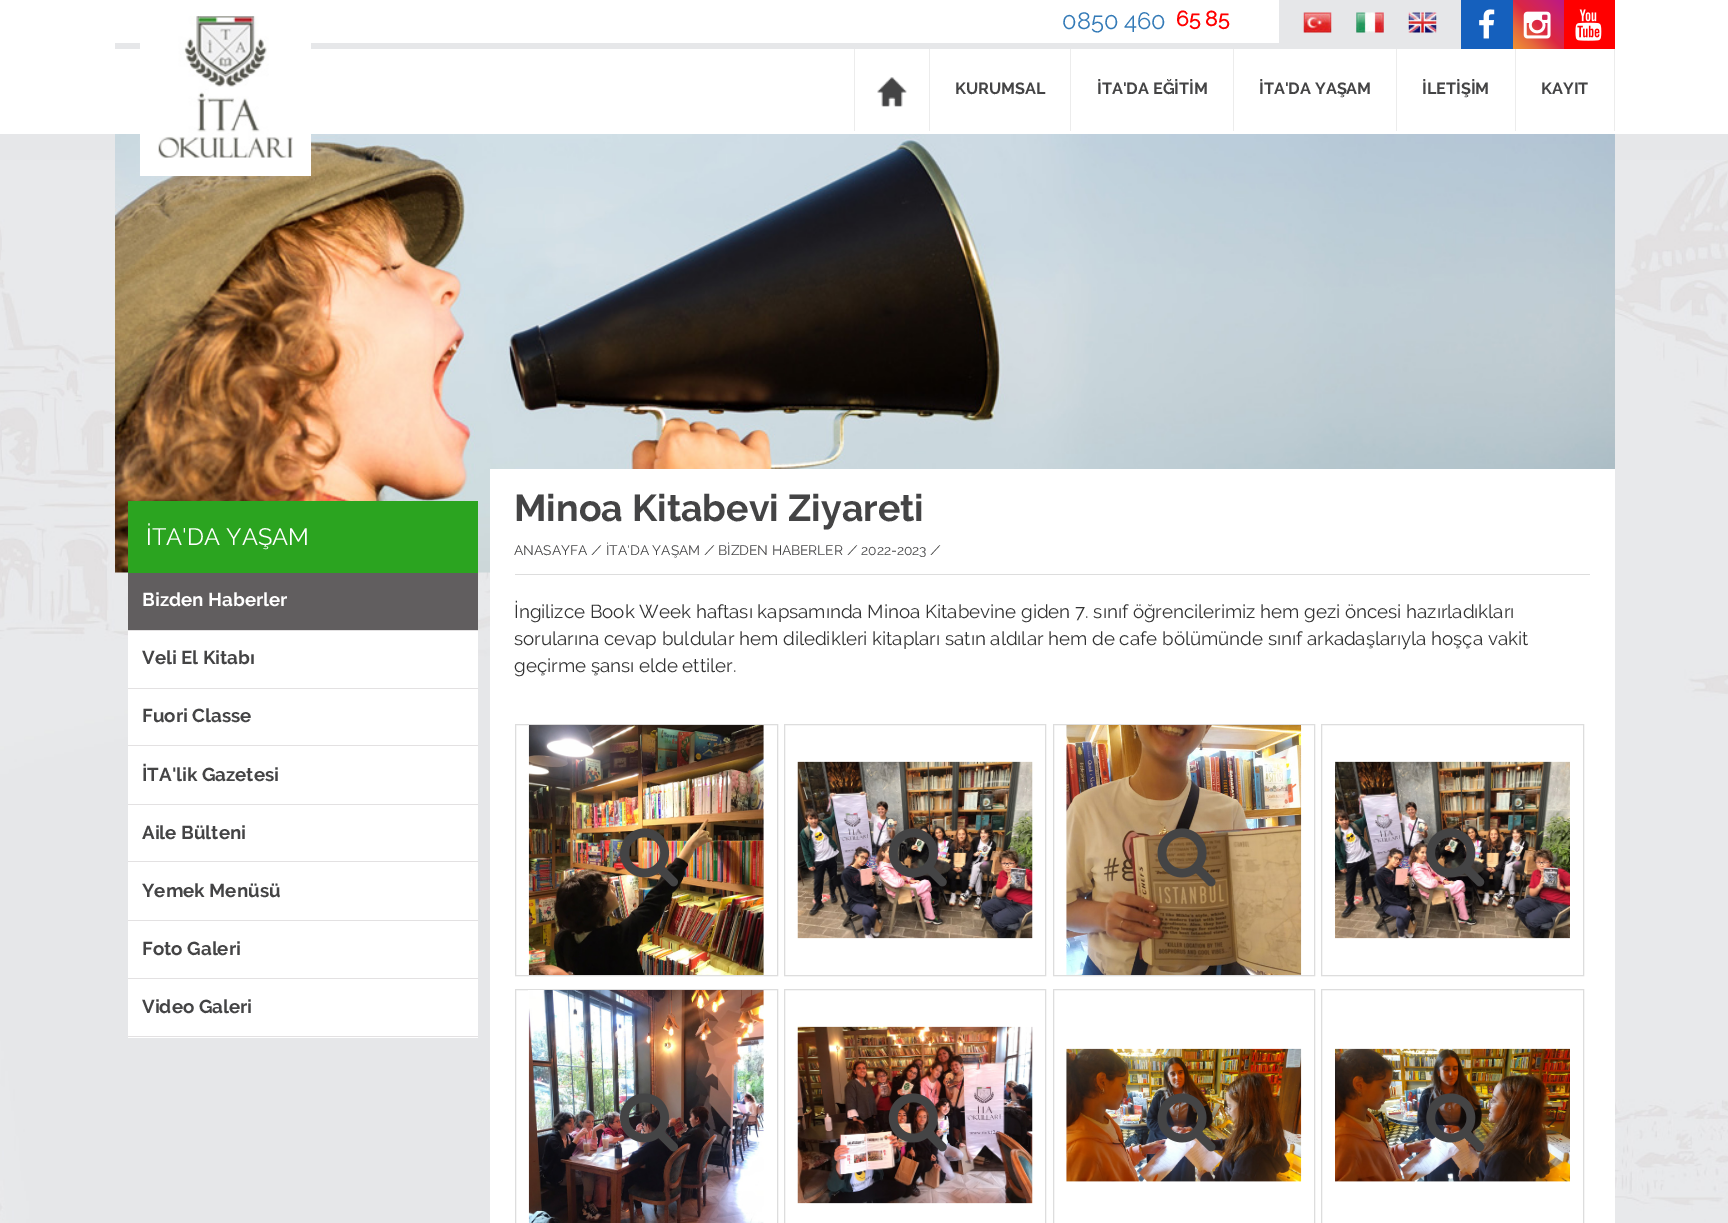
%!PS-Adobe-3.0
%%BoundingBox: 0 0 1728 1223
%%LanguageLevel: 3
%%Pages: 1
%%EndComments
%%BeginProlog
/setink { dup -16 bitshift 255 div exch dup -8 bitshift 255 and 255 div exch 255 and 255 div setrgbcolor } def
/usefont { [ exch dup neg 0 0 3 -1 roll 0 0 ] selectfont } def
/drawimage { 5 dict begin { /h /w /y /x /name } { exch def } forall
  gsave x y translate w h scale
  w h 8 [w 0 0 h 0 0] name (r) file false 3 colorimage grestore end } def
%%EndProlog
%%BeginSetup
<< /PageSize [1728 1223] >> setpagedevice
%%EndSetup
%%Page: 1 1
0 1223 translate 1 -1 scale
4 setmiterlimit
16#E6E7E9 setink
0 0 1728 1223 rectfill
(img1.raw) 0 160 1728 1063 drawimage
[
    [0 0 1728 134 16#FFFFFF]
    [854 48 1 83 16#ECECEC]
    [929 48 1 83 16#ECECEC]
    [1070 48 1 83 16#ECECEC]
    [1233 48 1 83 16#ECECEC]
    [1396 48 1 83 16#ECECEC]
    [115 43 1346 6 16#E6E7E9]
] { aload pop setink rectfill } forall
/Raleway-Regular 23.75 usefont
16#337AB7 setink
1062 29 moveto (0850 460) show
/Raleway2-Bold 21 usefont
16#FF0000 setink
1176 26 moveto (65 85) show
16#E6E7E9 setink
1279 0 182 43 rectfill
(img2.raw) 1303 12 29 21 drawimage
(img3.raw) 1356 12 28 21 drawimage
(img4.raw) 1408 12 29 21 drawimage
16#1560BD setink
1461 0 52 49 rectfill
(img5.raw) 1479 9 16 30 drawimage
16#ECECEC setink
1515 48 1 83 rectfill
gsave 1513 0 moveto 1564 0 lineto 1564 49 lineto 1513 49 lineto closepath clip newpath
<< /ShadingType 2 /ColorSpace /DeviceRGB /Coords [1513 49 1563 -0.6] /Extend [true true] /Function << /FunctionType 3 /Domain [0 1] /Functions [<< /FunctionType 2 /Domain [0 1] /C0 [0.941 0.58 0.2] /C1 [0.902 0.408 0.235] /N 1 >> << /FunctionType 2 /Domain [0 1] /C0 [0.902 0.408 0.235] /C1 [0.863 0.153 0.263] /N 1 >> << /FunctionType 2 /Domain [0 1] /C0 [0.863 0.153 0.263] /C1 [0.8 0.137 0.4] /N 1 >> << /FunctionType 2 /Domain [0 1] /C0 [0.8 0.137 0.4] /C1 [0.737 0.094 0.533] /N 1 >>] /Bounds [0.25 0.5 0.75] /Encode [0 1 0 1 0 1 0 1] >> >> shfill grestore
(img6.raw) 1523 11 28 28 drawimage
1614 48 1 83 rectfill
16#FF0000 setink
1564 0 51 49 rectfill
(img7.raw) 1575 9 27 32 drawimage
(img10.raw) 115 134 1500 439 drawimage
16#FFFFFF setink
140 43 171 133 rectfill
(img8.raw) 158 16 135 142 drawimage
(img9.raw) 877 77 30 30 drawimage
/Raleway-Bold 16.25 usefont
16#444445 setink
[
    [(KURUMSAL) 955 94]
    [(İTA'DA EĞİTİM) 1097 94]
    [(İTA'DA YAŞAM) 1259 94]
    [(İLETİŞİM) 1422 94]
    [(KAYIT) 1541 94]
] { aload pop moveto show } forall
16#FFFFFF setink
128 631 350 407 rectfill
16#2BA420 setink
128 501 350 72 rectfill
/Raleway-Regular 23.75 usefont
16#FFFFFF setink
146 545 moveto (İTA'DA YAŞAM) show
16#615E5F setink
128 573 350 57 rectfill
16#E3E1E2 setink
128 630 350 1 rectfill
/Raleway-Bold 18.75 usefont
16#FFFFFF setink
142 606 moveto (Bizden Haberler) show
16#E3E1E2 setink
128 688 350 1 rectfill
16#444445 setink
142 664 moveto (Veli El Kitabı) show
16#E3E1E2 setink
128 745 350 1 rectfill
16#444445 setink
142 722 moveto (Fuori Classe) show
16#E3E1E2 setink
128 804 350 1 rectfill
16#444445 setink
142 781 moveto (İTA'lik Gazetesi) show
16#E3E1E2 setink
128 861 350 1 rectfill
16#444445 setink
142 839 moveto (Aile Bülteni) show
16#E3E1E2 setink
128 920 350 1 rectfill
16#444445 setink
142 897 moveto (Yemek Menüsü) show
16#E3E1E2 setink
128 978 350 1 rectfill
16#444445 setink
142 955 moveto (Foto Galeri) show
16#E3E1E2 setink
128 1036 350 1 rectfill
16#444445 setink
142 1013 moveto (Video Galeri) show
16#FFFFFF setink
490 469 1125 754 rectfill
/Raleway-Bold 37.5 usefont
16#444445 setink
514 521 moveto (Minoa Kitabevi Ziyareti) show
16#DDDDDD setink
515 574 1075 1 rectfill
/Raleway-Regular 13.75 usefont
16#444445 setink
514 555 moveto (ANASAYFA) show
/Raleway-Italic 13.75 usefont
16#333333 setink
591 555 moveto (/) show
/Raleway-Regular 13.75 usefont
16#444445 setink
606 555 moveto (İTA'DA YAŞAM) show
/Raleway-Italic 13.75 usefont
16#333333 setink
704 555 moveto (/) show
/Raleway-Regular 13.75 usefont
16#444445 setink
718 555 moveto (BİZDEN HABERLER) show
/Raleway-Italic 13.75 usefont
16#333333 setink
847 555 moveto (/) show
/Raleway-Regular 13.75 usefont
16#444445 setink
861 555 moveto (2022-2023) show
/Raleway-Italic 13.75 usefont
16#333333 setink
930 555 moveto (/) show
/Raleway-Regular 18.75 usefont
[
    [(İngilizce Book Week haftası kapsamında Minoa Kitabevine giden 7. sınıf öğrencilerimiz hem gezi öncesi hazırladıkları) 514 618]
    [(sorularına cevap buldular hem diledikleri kitapları satın aldılar hem de cafe bölümünde sınıf arkadaşlarıyla hoşça vakit) 514 645]
    [(geçirme şansı elde ettiler.) 514 672]
] { aload pop moveto show } forall
16#DDDDDD setink
515.5 724.5 262 251 rectstroke
(img11.raw) 528 725 236 250 drawimage
(img12.raw) 620 828 58 59 drawimage
784.5 724.5 261 251 rectstroke
(img13.raw) 797 761 236 178 drawimage
(img14.raw) 888 828 59 59 drawimage
1053.5 724.5 261 251 rectstroke
(img15.raw) 1066 725 236 250 drawimage
(img16.raw) 1157 828 59 59 drawimage
1321.5 724.5 262 251 rectstroke
(img17.raw) 1335 761 235 178 drawimage
(img18.raw) 1426 828 59 59 drawimage
515.5 989.5 262 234 rectstroke
(img19.raw) 528 990 236 233 drawimage
(img20.raw) 620 1093 58 59 drawimage
784.5 989.5 261 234 rectstroke
(img21.raw) 797 1026 236 178 drawimage
(img22.raw) 888 1093 59 59 drawimage
1053.5 989.5 261 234 rectstroke
(img23.raw) 1066 1048 236 134 drawimage
(img24.raw) 1157 1093 59 59 drawimage
1321.5 989.5 262 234 rectstroke
(img25.raw) 1335 1048 235 134 drawimage
(img26.raw) 1426 1093 59 59 drawimage
showpage
%%EOF
